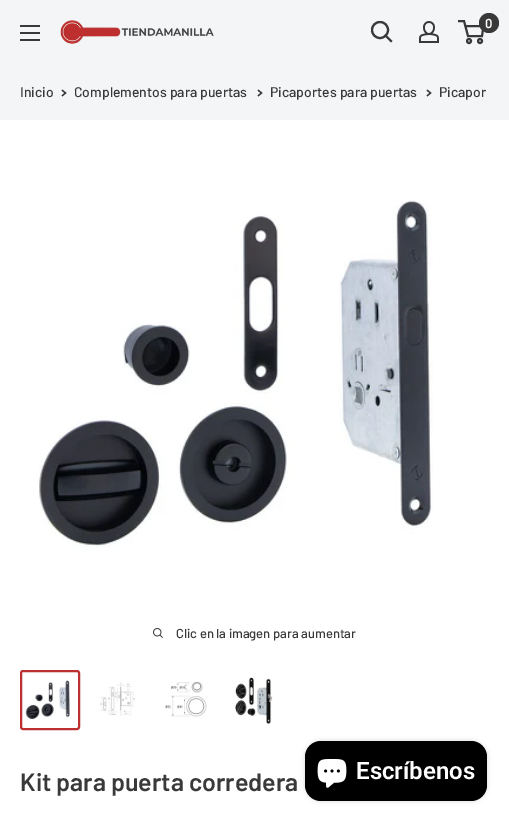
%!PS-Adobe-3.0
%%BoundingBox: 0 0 509 822
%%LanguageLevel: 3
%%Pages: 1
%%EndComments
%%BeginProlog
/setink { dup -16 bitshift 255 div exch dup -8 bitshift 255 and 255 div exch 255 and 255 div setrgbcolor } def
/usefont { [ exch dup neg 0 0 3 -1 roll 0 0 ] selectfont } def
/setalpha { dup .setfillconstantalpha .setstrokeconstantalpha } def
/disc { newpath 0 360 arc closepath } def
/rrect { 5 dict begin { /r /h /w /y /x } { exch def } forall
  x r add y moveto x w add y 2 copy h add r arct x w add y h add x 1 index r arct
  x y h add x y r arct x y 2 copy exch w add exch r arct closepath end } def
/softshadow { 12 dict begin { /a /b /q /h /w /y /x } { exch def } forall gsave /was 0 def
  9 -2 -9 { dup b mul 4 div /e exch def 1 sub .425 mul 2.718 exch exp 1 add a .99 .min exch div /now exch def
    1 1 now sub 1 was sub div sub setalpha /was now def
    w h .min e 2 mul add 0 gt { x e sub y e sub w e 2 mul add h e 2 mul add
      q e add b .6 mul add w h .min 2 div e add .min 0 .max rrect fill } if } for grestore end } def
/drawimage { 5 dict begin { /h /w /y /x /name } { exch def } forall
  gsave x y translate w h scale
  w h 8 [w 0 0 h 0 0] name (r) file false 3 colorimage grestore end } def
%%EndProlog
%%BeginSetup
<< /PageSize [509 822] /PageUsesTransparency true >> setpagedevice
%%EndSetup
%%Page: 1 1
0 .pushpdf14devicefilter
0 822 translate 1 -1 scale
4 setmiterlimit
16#F3F5F6 setink
0 0 509 822 rectfill
(img1.raw) 20 25 20 16 drawimage
(img2.raw) 60 20 154 24 drawimage
16#39393A setink
2.1 setlinewidth
2 setlinecap
391 41 moveto 385.5 35.5 lineto stroke
0 setlinecap
380 30 8 disc stroke
(img3.raw) 419 21 20 22 drawimage
2 setlinewidth
469 41 2 disc stroke
480 41 2 disc stroke
465.5 26 moveto 483.5 26 lineto 482 36 lineto 468 36 lineto 464 21 lineto 458 21 lineto stroke
489 23 10 disc fill
/Barlow-SemiBold 13 usefont
16#FFFFFF setink
485 28 moveto (0) show
/Barlow-Medium 14 usefont
16#39393A setink
20 97 moveto (Inicio) show
1.3 setlinewidth
2 setlinecap
62.5 90.5 moveto 65.5 93 lineto 62.5 95.5 lineto stroke
74 97 moveto (Complementos para puertas) show
258.5 90.5 moveto 261.5 93 lineto 258.5 95.5 lineto stroke
270 97 moveto (Picaportes para puertas) show
427.5 90.5 moveto 430.5 93 lineto 427.5 95.5 lineto stroke
439 97 moveto (Picapor) show
16#FFFFFF setink
0 120 509 702 rectfill
(img4.raw) 39 200 394 348 drawimage
(img5.raw) 153 628 10 10 drawimage
/Barlow-Medium 13 usefont
16#39393A setink
176 638 moveto (Clic en la imagen para aumentar) show
16#BD3031 setink
2 setlinewidth
0 setlinecap
21 671 58 58 2 rrect stroke
(img6.raw) 25 680 45 40 drawimage
(img7.raw) 100 682 35 34 drawimage
(img8.raw) 165 681 42 36 drawimage
(img9.raw) 235 677 38 47 drawimage
/Barlow-SemiBold 25 usefont
16#39393A setink
20 791 moveto (Kit para puerta corredera) show
16#000000 setink
305 741 182 60 16 2.5 0.15 softshadow
305 741 182 60 16 rrect fill
(img10.raw) 317 759 30 29 drawimage
/Roboto-SemiBold 24 usefont
16#FFFFFF setink
356 779 moveto (Escríbenos) show
.poppdf14devicefilter showpage
%%EOF
